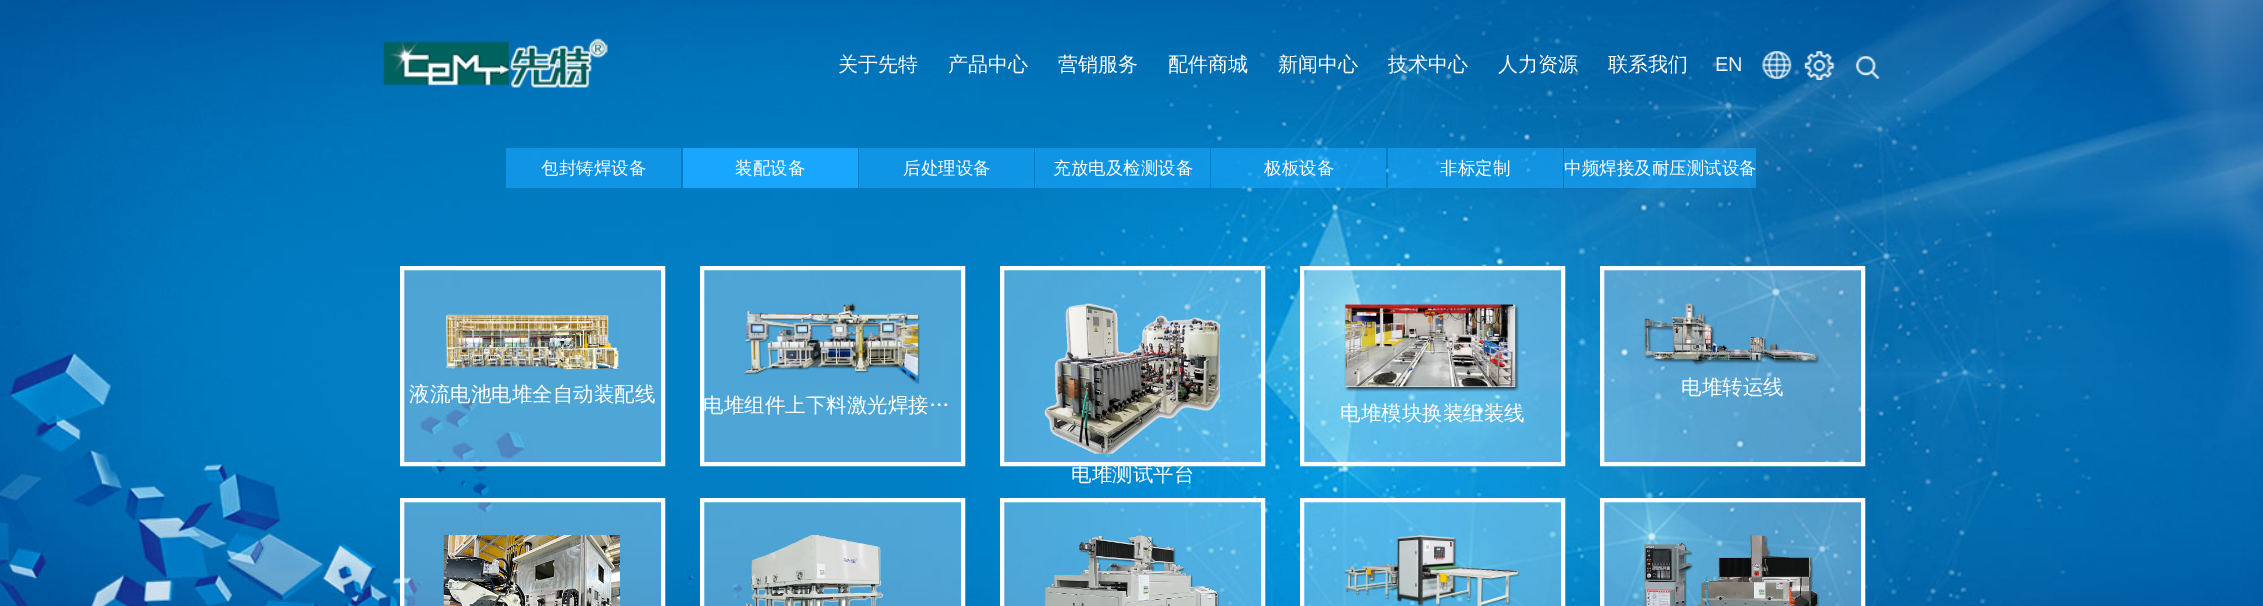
%!PS-Adobe-3.0
%%BoundingBox: 0 0 2263 606
%%LanguageLevel: 3
%%Pages: 1
%%EndComments
%%BeginProlog
/setink { dup -16 bitshift 255 div exch dup -8 bitshift 255 and 255 div exch 255 and 255 div setrgbcolor } def
/usefont { [ exch dup neg 0 0 3 -1 roll 0 0 ] selectfont } def
/setalpha { dup .setfillconstantalpha .setstrokeconstantalpha } def
/drawimage { 5 dict begin { /h /w /y /x /name } { exch def } forall
  gsave x y translate w h scale
  w h 8 [w 0 0 h 0 0] name (r) file false 3 colorimage grestore end } def
%%EndProlog
%%BeginSetup
<< /PageSize [2263 606] /PageUsesTransparency true >> setpagedevice
%%EndSetup
%%Page: 1 1
0 .pushpdf14devicefilter
0 606 translate 1 -1 scale
4 setmiterlimit
16#FFFFFF setink
0 0 2263 606 rectfill
(img1.raw) 0 0 2263 606 drawimage
(img2.raw) 383 38 225 50 drawimage
/WenQuanYiZenHei-Medium 20 usefont
[
    [(关于先特) 838 71]
    [(产品中心) 948 71]
    [(营销服务) 1058 71]
    [(配件商城) 1168 71]
    [(新闻中心) 1278 71]
    [(技术中心) 1388 71]
    [(人力资源) 1498 71]
    [(联系我们) 1608 71]
] { aload pop moveto show } forall
/LiberationSans-Regular 20 usefont
1715 71 moveto (EN) show
(img3.raw) 1762 51 30 28 drawimage
(img4.raw) 1804 51 31 29 drawimage
(img5.raw) 1855 56 25 23 drawimage
0.6 setalpha
16#19A7FD setink
506 148 175 40 rectfill
/WenQuanYiZenHei-Medium 17.5 usefont
1 setalpha
16#FFFFFF setink
541 174 moveto (包封铸焊设备) show
16#19A7FD setink
683 148 175 40 rectfill
16#FFFFFF setink
735 174 moveto (装配设备) show
0.6 setalpha
16#19A7FD setink
859 148 175 40 rectfill
1 setalpha
16#FFFFFF setink
903 174 moveto (后处理设备) show
0.6 setalpha
16#19A7FD setink
1035 148 175 40 rectfill
1 setalpha
16#FFFFFF setink
1053 174 moveto (充放电及检测设备) show
0.6 setalpha
16#19A7FD setink
1211 148 175 40 rectfill
1 setalpha
16#FFFFFF setink
1264 174 moveto (极板设备) show
0.6 setalpha
16#19A7FD setink
1388 148 175 40 rectfill
1 setalpha
16#FFFFFF setink
1440 174 moveto (非标定制) show
0.6 setalpha
16#19A7FD setink
1564 148 192 40 rectfill
1 setalpha
16#FFFFFF setink
1564 174 moveto (中频焊接及耐压测试设备) show
0.3 setalpha
402 268 moveto 663 268 lineto 663 464 lineto 402 464 lineto closepath fill
1 setalpha
4 setlinewidth
402 268 moveto 663 268 lineto 663 464 lineto 402 464 lineto closepath stroke
(img6.raw) 445 314 175 56 drawimage
/WenQuanYiZenHei-Medium 20.5 usefont
409 401 moveto (液流电池电堆全自动装配线) show
0.3 setalpha
702 268 moveto 963 268 lineto 963 464 lineto 702 464 lineto closepath fill
1 setalpha
702 268 moveto 963 268 lineto 963 464 lineto 702 464 lineto closepath stroke
(img7.raw) 743 303 177 82 drawimage
703 412 moveto (电堆组件上下料激光焊接…) show
0.3 setalpha
1302 268 moveto 1563 268 lineto 1563 464 lineto 1302 464 lineto closepath fill
1 setalpha
1302 268 moveto 1563 268 lineto 1563 464 lineto 1302 464 lineto closepath stroke
(img8.raw) 1344 304 175 88 drawimage
1340 420 moveto (电堆模块换装组装线) show
0.3 setalpha
1602 268 moveto 1863 268 lineto 1863 464 lineto 1602 464 lineto closepath fill
1 setalpha
1602 268 moveto 1863 268 lineto 1863 464 lineto 1602 464 lineto closepath stroke
(img9.raw) 1644 303 176 63 drawimage
1681 394 moveto (电堆转运线) show
0.3 setalpha
1002 268 moveto 1263 268 lineto 1263 464 lineto 1002 464 lineto closepath fill
1 setalpha
1002 268 moveto 1263 268 lineto 1263 464 lineto 1002 464 lineto closepath stroke
(img10.raw) 1044 303 176 151 drawimage
1071 481 moveto (电堆测试平台) show
0.3 setalpha
402 500 moveto 663 500 lineto 663 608 lineto 402 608 lineto closepath fill
1 setalpha
402 500 moveto 663 500 lineto 663 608 lineto 402 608 lineto closepath stroke
(img11.raw) 443 535 177 71 drawimage
0.3 setalpha
702 500 moveto 963 500 lineto 963 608 lineto 702 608 lineto closepath fill
1 setalpha
702 500 moveto 963 500 lineto 963 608 lineto 702 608 lineto closepath stroke
(img12.raw) 745 535 139 71 drawimage
0.3 setalpha
1002 500 moveto 1263 500 lineto 1263 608 lineto 1002 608 lineto closepath fill
1 setalpha
1002 500 moveto 1263 500 lineto 1263 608 lineto 1002 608 lineto closepath stroke
(img13.raw) 1045 535 175 71 drawimage
0.3 setalpha
1302 500 moveto 1563 500 lineto 1563 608 lineto 1302 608 lineto closepath fill
1 setalpha
1302 500 moveto 1563 500 lineto 1563 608 lineto 1302 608 lineto closepath stroke
(img14.raw) 1343 535 177 71 drawimage
0.3 setalpha
1602 500 moveto 1863 500 lineto 1863 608 lineto 1602 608 lineto closepath fill
1 setalpha
1602 500 moveto 1863 500 lineto 1863 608 lineto 1602 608 lineto closepath stroke
(img15.raw) 1644 535 176 71 drawimage
.poppdf14devicefilter showpage
%%EOF
